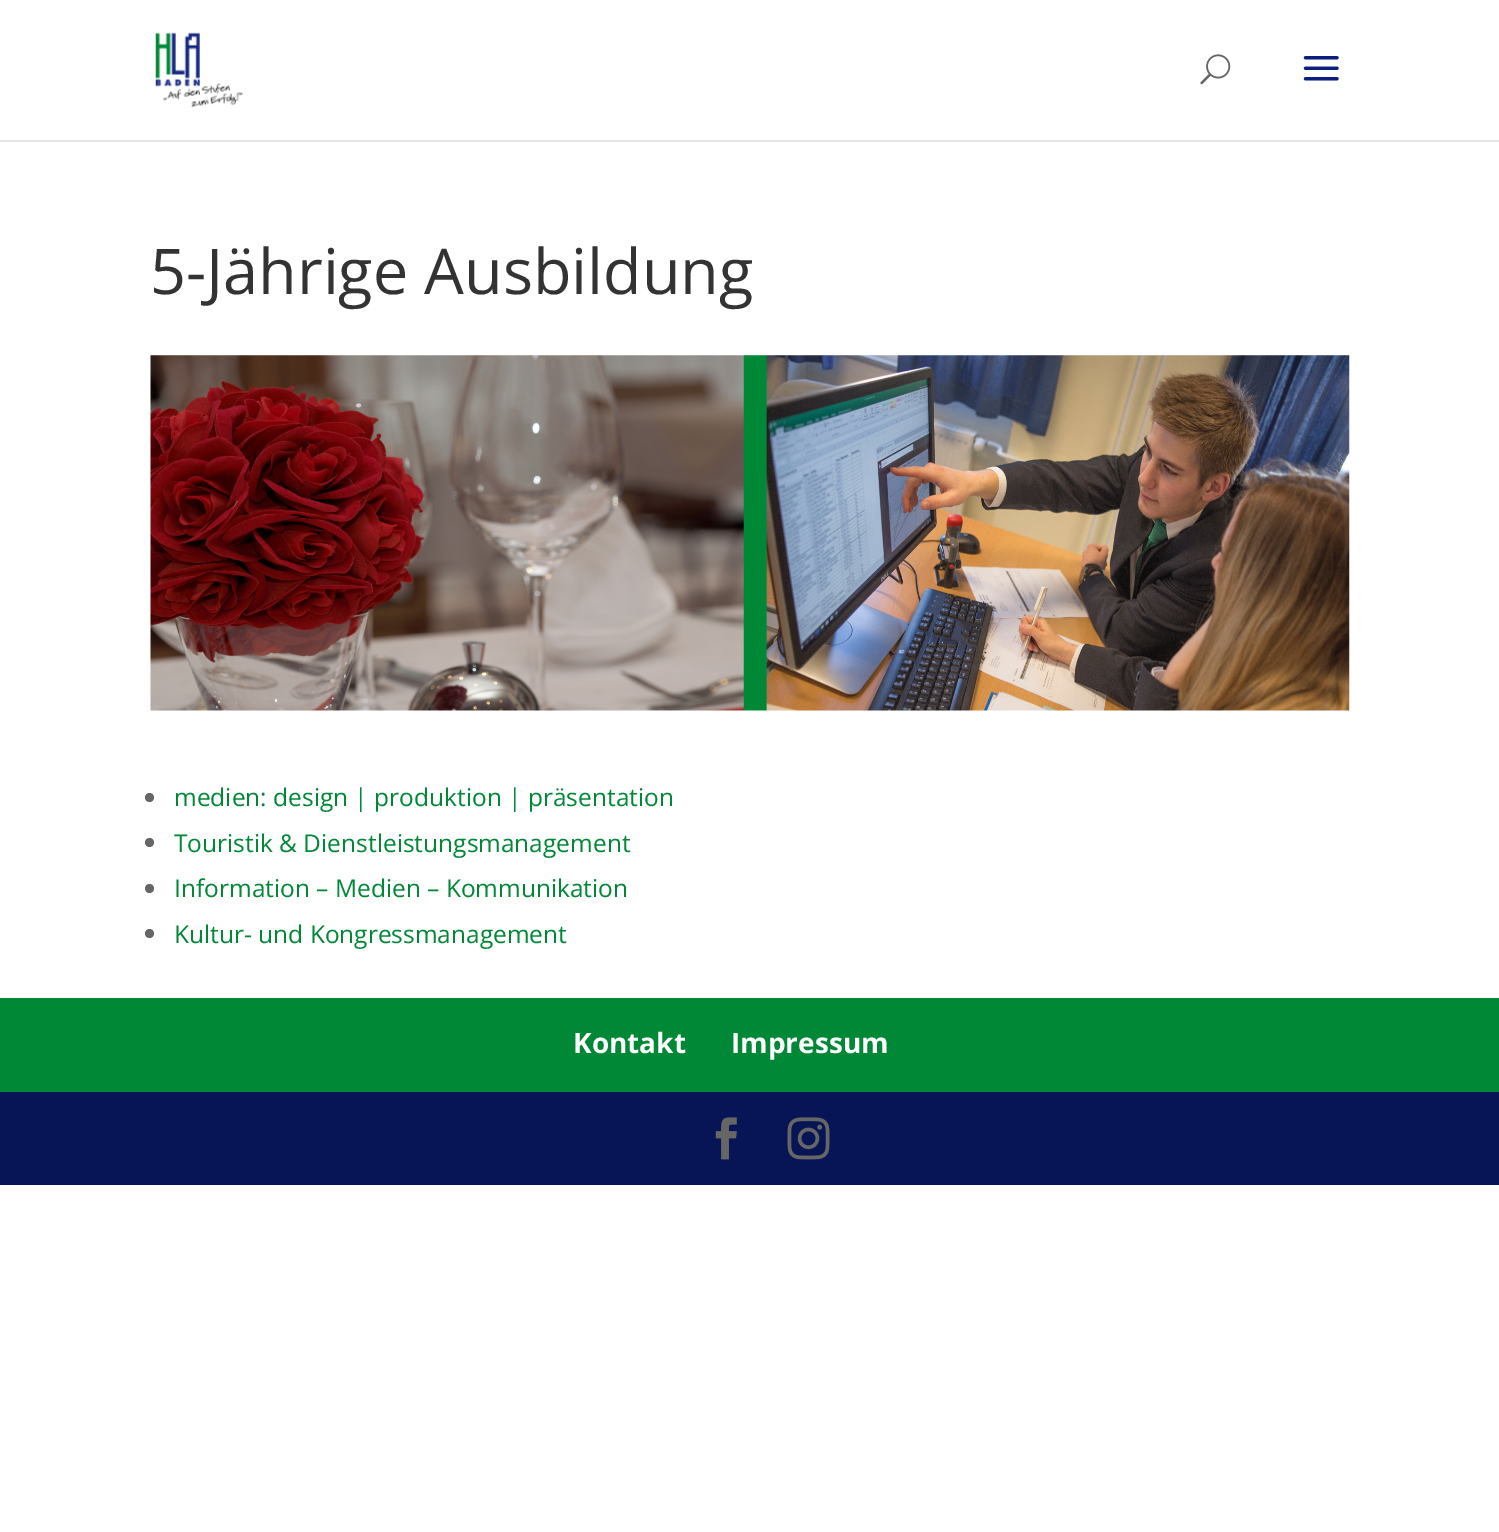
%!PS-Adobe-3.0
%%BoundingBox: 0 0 1499 1532
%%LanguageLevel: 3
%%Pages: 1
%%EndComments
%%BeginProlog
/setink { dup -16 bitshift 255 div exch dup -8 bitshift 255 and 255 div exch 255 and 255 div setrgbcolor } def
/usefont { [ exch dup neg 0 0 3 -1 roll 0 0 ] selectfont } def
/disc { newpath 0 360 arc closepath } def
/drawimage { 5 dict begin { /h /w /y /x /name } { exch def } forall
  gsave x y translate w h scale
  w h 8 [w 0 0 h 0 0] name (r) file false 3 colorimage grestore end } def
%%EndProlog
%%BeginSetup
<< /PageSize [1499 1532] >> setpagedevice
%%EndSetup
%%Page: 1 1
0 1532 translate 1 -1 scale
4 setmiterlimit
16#FFFFFF setink
0 0 1499 1532 rectfill
16#E6E6E6 setink
0 140 moveto 0 142 lineto 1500 142 lineto 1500 2 lineto 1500 140 lineto closepath fill
(img1.raw) 155 32 88 76 drawimage
(img2.raw) 1200 54 31 31 drawimage
(img3.raw) 1303 56 36 25 drawimage
/OpenSans-Regular 63 usefont
16#333333 setink
150 294 moveto (5-Jährige Ausbildung) show
(img4.raw) 150 355 1200 356 drawimage
16#666666 setink
149.5 797.5 4.5 disc fill
/OpenSans-Regular 24.5 usefont
16#008836 setink
174 806 moveto (medien: design | produktion | präsentation) show
16#666666 setink
149.5 842.5 4.5 disc fill
16#008836 setink
174 852 moveto (Touristik & Dienstleistungsmanagement) show
16#666666 setink
149.5 888.5 4.5 disc fill
16#008836 setink
174 897 moveto (Information – Medien – Kommunikation) show
16#666666 setink
149.5 933.5 4.5 disc fill
16#008836 setink
174 943 moveto (Kultur- und Kongressmanagement) show
0 998 1499 94 rectfill
/OpenSans-Bold 28 usefont
16#FFFFFF setink
573 1053 moveto (Kontakt) show
731 1053 moveto (Impressum) show
16#071455 setink
0 1092 1499 93 rectfill
(img5.raw) 715 1117 22 43 drawimage
(img6.raw) 787 1117 43 43 drawimage
showpage
%%EOF
